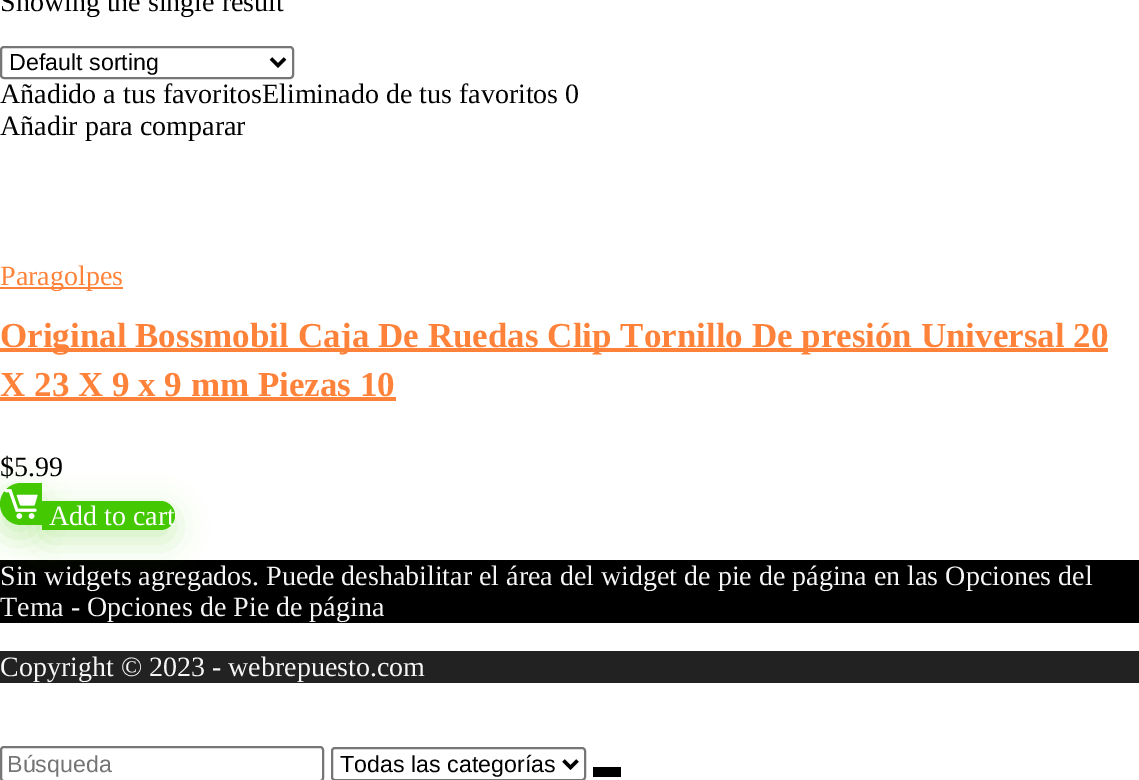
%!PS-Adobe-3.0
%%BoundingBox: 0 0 1139 780
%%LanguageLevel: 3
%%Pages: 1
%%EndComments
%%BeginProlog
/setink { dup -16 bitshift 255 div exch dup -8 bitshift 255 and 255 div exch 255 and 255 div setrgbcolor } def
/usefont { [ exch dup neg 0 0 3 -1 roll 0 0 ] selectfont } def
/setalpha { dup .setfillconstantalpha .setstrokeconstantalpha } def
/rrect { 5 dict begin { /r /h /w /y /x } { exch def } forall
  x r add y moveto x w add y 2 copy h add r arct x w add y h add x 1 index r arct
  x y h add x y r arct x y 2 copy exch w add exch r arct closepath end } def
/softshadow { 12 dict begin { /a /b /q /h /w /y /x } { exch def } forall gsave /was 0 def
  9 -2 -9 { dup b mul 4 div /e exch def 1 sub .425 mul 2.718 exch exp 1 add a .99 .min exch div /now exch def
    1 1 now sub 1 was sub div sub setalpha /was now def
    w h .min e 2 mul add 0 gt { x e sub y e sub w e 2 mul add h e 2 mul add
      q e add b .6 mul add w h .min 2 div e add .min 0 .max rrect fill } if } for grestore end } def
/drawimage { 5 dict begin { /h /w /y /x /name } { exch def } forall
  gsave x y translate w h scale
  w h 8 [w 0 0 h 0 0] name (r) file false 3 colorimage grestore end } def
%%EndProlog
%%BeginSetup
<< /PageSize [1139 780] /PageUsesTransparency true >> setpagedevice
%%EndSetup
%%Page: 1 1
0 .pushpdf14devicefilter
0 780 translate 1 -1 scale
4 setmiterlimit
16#FFFFFF setink
0 0 1139 780 rectfill
/LiberationSerif-Regular 28 usefont
16#000000 setink
0 11 moveto (Showing the single result) show
16#767676 setink
2 setlinewidth
1 47 292 31 3 rrect stroke
16#000000 setink
3.5 setlinewidth
271 58.5 moveto 278 65.5 lineto 285 58.5 lineto stroke
/LiberationSans-Regular 23.25 usefont
9 70 moveto (Default sorting) show
/LiberationSerif-Regular 28 usefont
0 103 moveto (Añadido a tus favoritosEliminado de tus favoritos 0) show
0 135 moveto (Añadir para comparar) show
16#FF823A setink
0 287 123 2 rectfill
0 285 moveto (Paragolpes) show
0 348 1108 4 rectfill
/LiberationSerif-Bold 35 usefont
0 347 moveto (Original Bossmobil Caja De Ruedas Clip Tornillo De presión Universal 20) show
0 396 moveto (X 23 X 9 x 9 mm Piezas 10) show
0 397 396 4 rectfill
/LiberationSerif-Regular 28 usefont
16#000000 setink
0 476 moveto ($5.99) show
0 560 1139 63 rectfill
16#43C801 setink
-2 494 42 42 21 16.5 0.25 softshadow
21 483 moveto 42 483 lineto 42 525 lineto 21 525 lineto 9.5 525 0 515.5 0 504 curveto 0 492.5 9.5 483 21 483 curveto closepath fill
40 511 133 30 15 16.5 0.25 softshadow
(img1.raw) 4 489 34 30 drawimage
42 501 moveto 160.5 501 lineto 168.5 501 175 507.5 175 515.5 curveto 175 523.5 168.5 530 160.5 530 curveto 42 530 lineto closepath fill
16#FFFFFF setink
49 525 moveto (Add to cart) show
16#F5F5F5 setink
0 585 moveto (Sin widgets agregados. Puede deshabilitar el área del widget de pie de página en las Opciones del) show
0 616 moveto (Tema - Opciones de Pie de página) show
16#222222 setink
0 651 1139 32 rectfill
16#F5F5F5 setink
0 676 moveto (Copyright © 2023 - webrepuesto.com) show
16#767676 setink
2 setlinewidth
1 747 322 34 3 rrect stroke
/LiberationSans-Regular 23.25 usefont
16#757575 setink
7 772 moveto (Búsqueda) show
16#767676 setink
332 748 253 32 3 rrect stroke
16#000000 setink
3.5 setlinewidth
563.5 760.5 moveto 570.5 767.5 lineto 577.5 760.5 lineto stroke
340 772 moveto (Todas las categorías) show
593 767 28 10 rectfill
.poppdf14devicefilter showpage
%%EOF
